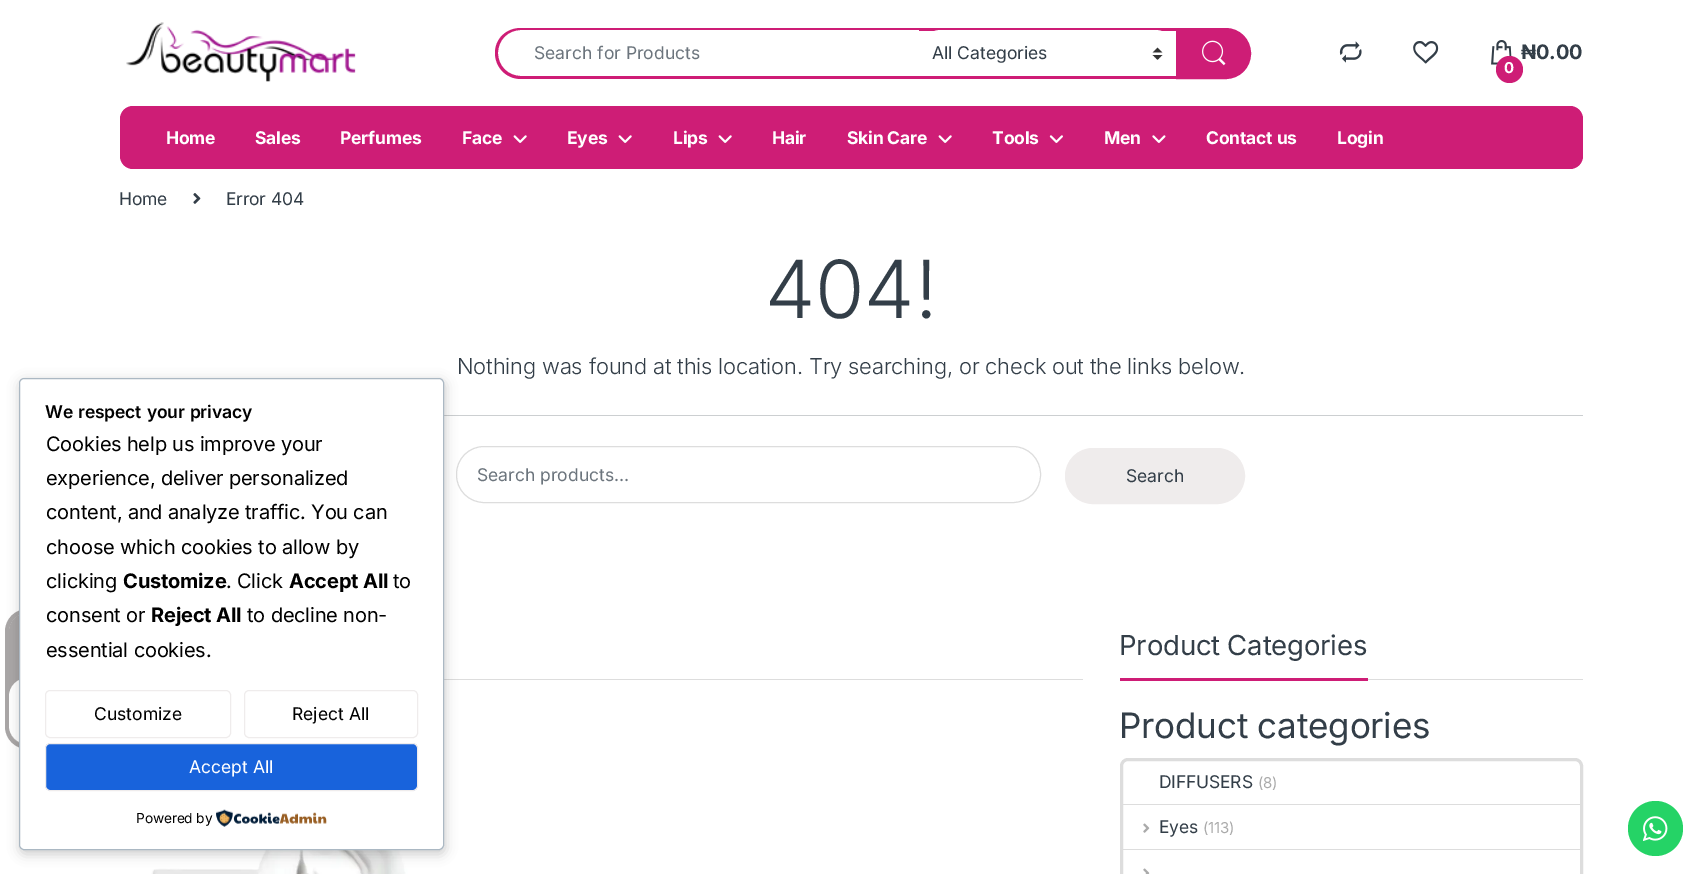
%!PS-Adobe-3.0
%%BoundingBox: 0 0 1701 874
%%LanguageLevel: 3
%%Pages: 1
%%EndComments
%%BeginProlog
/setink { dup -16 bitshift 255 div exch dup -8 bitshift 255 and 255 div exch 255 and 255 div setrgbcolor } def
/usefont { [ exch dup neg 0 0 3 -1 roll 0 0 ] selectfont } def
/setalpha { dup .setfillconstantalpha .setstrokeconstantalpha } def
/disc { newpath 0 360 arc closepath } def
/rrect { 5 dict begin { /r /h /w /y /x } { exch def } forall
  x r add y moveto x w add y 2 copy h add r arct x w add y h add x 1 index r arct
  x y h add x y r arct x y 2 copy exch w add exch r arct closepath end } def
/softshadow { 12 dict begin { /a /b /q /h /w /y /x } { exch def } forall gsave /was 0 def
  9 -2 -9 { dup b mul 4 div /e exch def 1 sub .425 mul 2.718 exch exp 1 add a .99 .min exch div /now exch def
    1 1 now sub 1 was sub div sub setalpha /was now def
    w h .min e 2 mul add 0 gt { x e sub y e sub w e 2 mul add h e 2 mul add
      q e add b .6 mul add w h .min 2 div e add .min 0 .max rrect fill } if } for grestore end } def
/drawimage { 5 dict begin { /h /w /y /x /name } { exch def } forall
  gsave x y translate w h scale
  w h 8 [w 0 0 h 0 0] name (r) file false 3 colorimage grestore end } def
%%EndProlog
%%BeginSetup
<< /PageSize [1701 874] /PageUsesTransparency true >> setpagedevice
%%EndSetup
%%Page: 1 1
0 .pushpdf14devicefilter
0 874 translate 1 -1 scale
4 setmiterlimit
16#FFFFFF setink
0 0 1701 874 rectfill
(img1.raw) 126 22 230 60 drawimage
16#CE1D76 setink
918 28 260 3 rectfill
16#FFFFFF setink
918 30 260 46 23 rrect fill
521 30 moveto 919 30 lineto 919 76 lineto 521 76 lineto 508.5 76 498 65.5 498 53 curveto 498 40.5 508.5 30 521 30 curveto closepath fill
16#CE1D76 setink
918 76 260 3 rectfill
521 28 moveto 919 28 lineto 919 79 lineto 521 79 lineto 506 79 495 67 495 53 curveto 495 39 506 28 521 28 curveto closepath 521 30 moveto 919 30 lineto 919 76 lineto 521 76 lineto 508 76 498 66 498 53 curveto 498 40 508 30 521 30 curveto closepath eofill
/Inter-Regular 17.5 usefont
16#6C757D setink
534 59 moveto (Search for Products) show
(img2.raw) 1152 47 11 13 drawimage
16#333E48 setink
932 59 moveto (All Categories) show
16#CE1D76 setink
1177.5 29.5 moveto 1225.5 29.5 lineto 1239 29.5 1249.5 40 1249.5 53.5 curveto 1249.5 67 1239 77.5 1225.5 77.5 curveto 1177.5 77.5 lineto closepath gsave fill grestore
3 setlinewidth
stroke
(img3.raw) 1202 40 24 26 drawimage
(img4.raw) 1339 41 23 22 drawimage
(img5.raw) 1413 41 26 23 drawimage
(img6.raw) 1491 40 21 25 drawimage
/Inter-Bold 20 usefont
16#333E48 setink
1521 59 moveto -0.18 0 (₦0.00) ashow
16#CE1D76 setink
1509.5 69.5 13.5 disc fill
/Inter-Bold 15 usefont
16#FFFFFF setink
1504 73 moveto -0.18 0 (0) ashow
16#CE1D76 setink
120 106 1463 63 13 rrect fill
/Inter-Bold 17.5 usefont
16#FFFFFF setink
166 144 moveto -0.18 0 (Home) ashow
255 144 moveto -0.18 0 (Sales) ashow
340 144 moveto -0.18 0 (Perfumes) ashow
462 144 moveto -0.18 0 (Face) ashow
(img7.raw) 513 135 14 8 drawimage
567 144 moveto -0.18 0 (Eyes) ashow
(img7.raw) 618 135 14 8 drawimage
673 144 moveto -0.18 0 (Lips) ashow
(img7.raw) 718 135 14 8 drawimage
772 144 moveto -0.18 0 (Hair) ashow
847 144 moveto -0.18 0 (Skin Care) ashow
(img7.raw) 938 135 14 8 drawimage
992 144 moveto -0.18 0 (Tools) ashow
(img8.raw) 1049 135 14 8 drawimage
1104 144 moveto -0.18 0 (Men) ashow
(img9.raw) 1152 135 14 8 drawimage
1206 144 moveto -0.18 0 (Contact us) ashow
1337 144 moveto -0.18 0 (Login) ashow
/Inter-Regular 17.5 usefont
16#333E48 setink
119 205 moveto -0.18 0 (Home) ashow
(img10.raw) 193 193 8 11 drawimage
226 205 moveto -0.18 0 (Error 404) ashow
/Inter-Light 80 usefont
765 318 moveto -0.18 0 (404!) ashow
/Inter-Light 21.9 usefont
457 374 moveto -0.18 0 (Nothing was found at this location. Try searching, or check out the links below.) ashow
16#CCCFD1 setink
444 415 1139 1 rectfill
16#DDDDDD setink
1 setlinewidth
456.5 446.5 584 56 27.5 rrect stroke
/Inter-Regular 17.5 usefont
16#6C757D setink
477 481 moveto (Search products…) show
16#EFECEC setink
1065.5 448.5 179 55 27.5 rrect gsave fill grestore
stroke
16#333E48 setink
1126 482 moveto (Search) show
16#DDDDDD setink
444 679 639 1 rectfill
(img11.raw) 151 850 257 24 drawimage
1368 679 215 1 rectfill
/Inter-Regular 27.5 usefont
16#333E48 setink
1119 655 moveto -0.18 0 (Product Categories) ashow
16#CE1D76 setink
1120 678 248 3 rectfill
/Inter-Regular 35 usefont
16#333E48 setink
1119 738 moveto -0.18 0 (Product categories) ashow
16#DDDDDD setink
3 setlinewidth
1121.5 759.5 460 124 6.5 rrect stroke
/Inter-Regular 17.5 usefont
16#333E48 setink
1159 788 moveto -0.18 0 (DIFFUSERS) ashow
/Inter-Regular 15 usefont
16#AAAAAA setink
1258 788 moveto -0.18 0 (\(8\)) ashow
16#DDDDDD setink
1123 804 457 1 rectfill
(img12.raw) 1143 823 7 10 drawimage
/Inter-Regular 17.5 usefont
16#333E48 setink
1159 833 moveto -0.18 0 (Eyes) ashow
/Inter-Regular 15 usefont
16#AAAAAA setink
1203 833 moveto -0.18 0 (\(113\)) ashow
16#DDDDDD setink
1123 849 457 1 rectfill
(img13.raw) 1143 868 7 6 drawimage
16#A9A6A6 setink
4 setlinewidth
7 611 41 136 20.5 rrect stroke
9 613 37 132 18.5 rrect fill
16#FFFFFF setink
9 678 37 66 18.5 rrect fill
16#000000 setink
20 381 425 473 5 6 0.2 softshadow
16#FFFFFF setink
19.5 378.5 424 471 4.5 rrect gsave fill grestore
16#ABB8C3 setink
1 setlinewidth
stroke
/Inter-SemiBold 17.5 usefont
16#000000 setink
45 418 moveto 1 0 32 -0.18 0 (We respect your privacy) awidthshow
/Inter-Regular 20 usefont
46 451 moveto -0.18 0 (Cookies help us improve your) ashow
46 485 moveto -0.18 0 (experience, deliver personalized) ashow
46 519 moveto -0.18 0 (content, and analyze traffic. You can) ashow
46 554 moveto -0.18 0 (choose which cookies to allow by) ashow
46 588 moveto -0.18 0 (clicking) ashow
/Inter-Bold 20 usefont
123 588 moveto -0.18 0 (Customize) ashow
/Inter-Regular 20 usefont
226 588 moveto -0.18 0 (. Click) ashow
/Inter-Bold 20 usefont
289 588 moveto -0.18 0 (Accept All) ashow
/Inter-Regular 20 usefont
393 588 moveto -0.18 0 (to) ashow
46 622 moveto -0.18 0 (consent or) ashow
/Inter-Bold 20 usefont
151 622 moveto -0.18 0 (Reject All) ashow
/Inter-Regular 20 usefont
247 622 moveto -0.18 0 (to decline non-) ashow
46 657 moveto -0.18 0 (essential cookies.) ashow
16#EFECEC setink
45.5 690.5 185 47 4.5 rrect stroke
/Inter-Regular 17.5 usefont
16#000000 setink
94 720 moveto (Customize) show
16#EFECEC setink
244.5 690.5 173 47 4.5 rrect stroke
16#000000 setink
292 720 moveto (Reject All) show
16#1863DC setink
45.5 743.5 372 47 4.5 rrect gsave fill grestore
16#EFECEC setink
stroke
16#FFFFFF setink
189 773 moveto (Accept All) show
/Inter-Regular 13.75 usefont
16#000000 setink
136 823 moveto -0.18 0 (Powered by) ashow
(img14.raw) 216 809 111 18 drawimage
16#25D366 setink
1655.5 828.5 27.5 disc fill
(img15.raw) 1643 816 25 25 drawimage
.poppdf14devicefilter showpage
%%EOF
